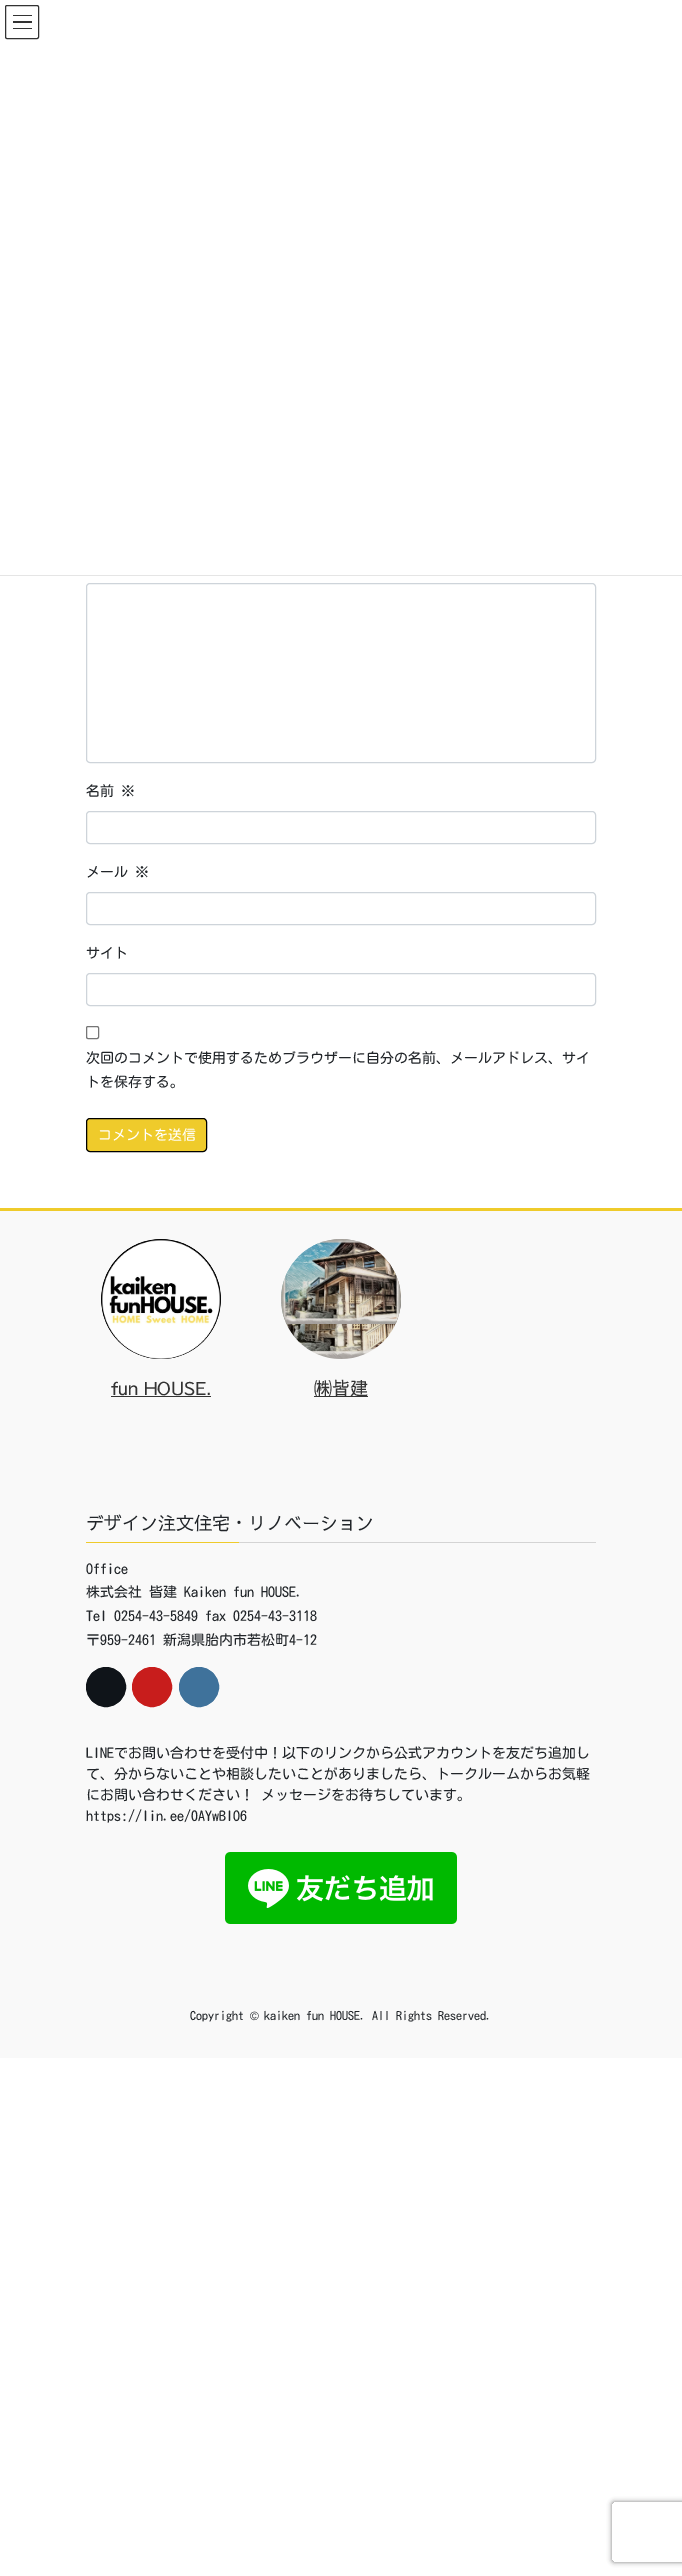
%!PS-Adobe-3.0
%%BoundingBox: 0 0 682 2576
%%LanguageLevel: 3
%%Pages: 1
%%EndComments
%%BeginProlog
/setink { dup -16 bitshift 255 div exch dup -8 bitshift 255 and 255 div exch 255 and 255 div setrgbcolor } def
/usefont { [ exch dup neg 0 0 3 -1 roll 0 0 ] selectfont } def
/setalpha { dup .setfillconstantalpha .setstrokeconstantalpha } def
/disc { newpath 0 360 arc closepath } def
/rrect { 5 dict begin { /r /h /w /y /x } { exch def } forall
  x r add y moveto x w add y 2 copy h add r arct x w add y h add x 1 index r arct
  x y h add x y r arct x y 2 copy exch w add exch r arct closepath end } def
/softshadow { 12 dict begin { /a /b /q /h /w /y /x } { exch def } forall gsave /was 0 def
  9 -2 -9 { dup b mul 4 div /e exch def 1 sub .425 mul 2.718 exch exp 1 add a .99 .min exch div /now exch def
    1 1 now sub 1 was sub div sub setalpha /was now def
    w h .min e 2 mul add 0 gt { x e sub y e sub w e 2 mul add h e 2 mul add
      q e add b .6 mul add w h .min 2 div e add .min 0 .max rrect fill } if } for grestore end } def
/drawimage { 5 dict begin { /h /w /y /x /name } { exch def } forall
  gsave x y translate w h scale
  w h 8 [w 0 0 h 0 0] name (r) file false 3 colorimage grestore end } def
%%EndProlog
%%BeginSetup
<< /PageSize [682 2576] /PageUsesTransparency true >> setpagedevice
%%EndSetup
%%Page: 1 1
0 .pushpdf14devicefilter
0 2576 translate 1 -1 scale
4 setmiterlimit
16#FFFFFF setink
0 0 682 2576 rectfill
[
    [13 15 19 1 16#333333]
    [13 21 19 2 16#333333]
    [13 28 19 1 16#333333]
] { aload pop setink rectfill } forall
5.5 5.5 33 33 1.5 rrect stroke
16#E5E5E5 setink
0 575 682 1 rectfill
16#CED4DA setink
86.5 583.5 509 179 3.5 rrect stroke
/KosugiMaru-Regular 14 usefont
16#212529 setink
86 796 moveto (名前 ※) show
16#CED4DA setink
86.5 811.5 509 32 3.5 rrect stroke
16#212529 setink
86 877 moveto (メール ※) show
16#CED4DA setink
86.5 892.5 509 32 3.5 rrect stroke
16#212529 setink
86 958 moveto (サイト) show
16#CED4DA setink
86.5 973.5 509 32 3.5 rrect stroke
16#767676 setink
86.5 1026.5 12 12 1.5 rrect stroke
16#212529 setink
86 1063 moveto (次回のコメントで使用するためブラウザーに自分の名前、メールアドレス、サイ) show
86 1087 moveto (トを保存する。) show
16#EFCB2B setink
86.5 1118.5 120 33 3.5 rrect gsave fill grestore
16#000000 setink
stroke
16#FFFFFF setink
98 1140 moveto (コメントを送信) show
16#F9F9F9 setink
0 1211 682 847 rectfill
16#EFCB2B setink
0 1208 682 3 rectfill
(img1.raw) 101 1239 120 120 drawimage
(img2.raw) 101 1239 120 120 drawimage
/SawarabiGothic-Regular 18 usefont
16#333333 setink
111 1395 moveto (fun HOUSE.) show
111 1396 100 1 rectfill
(img3.raw) 281 1239 120 120 drawimage
(img4.raw) 281 1239 120 85 drawimage
314 1396 54 1 rectfill
314 1395 moveto (㈱皆建) show
16#D4D4D4 setink
239 1542 357 1 rectfill
16#212529 setink
86 1530 moveto (デザイン注文住宅・リノベーション) show
16#EFCB2B setink
86 1542 153 1 rectfill
/KosugiMaru-Regular 14 usefont
16#212529 setink
[
    [(Office) 86 1574]
    [(株式会社 皆建 Kaiken fun HOUSE.) 86 1597]
    [(Tel 0254-43-5849 fax 0254-43-3118) 86 1621]
    [(〒959-2461 新潟県胎内市若松町4-12) 86 1645]
] { aload pop moveto show } forall
16#0F1419 setink
106 1687 19.5 disc gsave fill grestore
stroke
16#C81D1C setink
152 1687 19.5 disc gsave fill grestore
stroke
16#3F729B setink
199 1687 19.5 disc gsave fill grestore
stroke
16#212529 setink
[
    [(LINEでお問い合わせを受付中！以下のリンクから公式アカウントを友だち追加し) 86 1758]
    [(て、分からないことや相談したいことがありましたら、トークルームからお気軽) 86 1779]
    [(にお問い合わせください！ メッセージをお待ちしています。) 86 1800]
    [(https://lin.ee/0AYwBIO6) 86 1821]
] { aload pop moveto show } forall
(img5.raw) 225 1852 232 72 drawimage
/KosugiMaru-Regular 12 usefont
190 2020 moveto (Copyright) show
/LiberationSans-Regular 12 usefont
250 2020 moveto (©) show
/KosugiMaru-Regular 12 usefont
264 2020 moveto (kaiken fun HOUSE. All Rights Reserved.) show
gsave
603 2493 moveto 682 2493 lineto 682 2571 lineto 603 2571 lineto closepath 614 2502 moveto 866 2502 lineto 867 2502 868 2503 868 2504 curveto 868 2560 lineto 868 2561 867 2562 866 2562 curveto 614 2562 lineto 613 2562 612 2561 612 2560 curveto 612 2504 lineto 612 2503 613 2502 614 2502 curveto closepath eoclip newpath
16#808080 setink
612 2502 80 60 2 2.5 1 softshadow
grestore
.poppdf14devicefilter showpage
%%EOF
